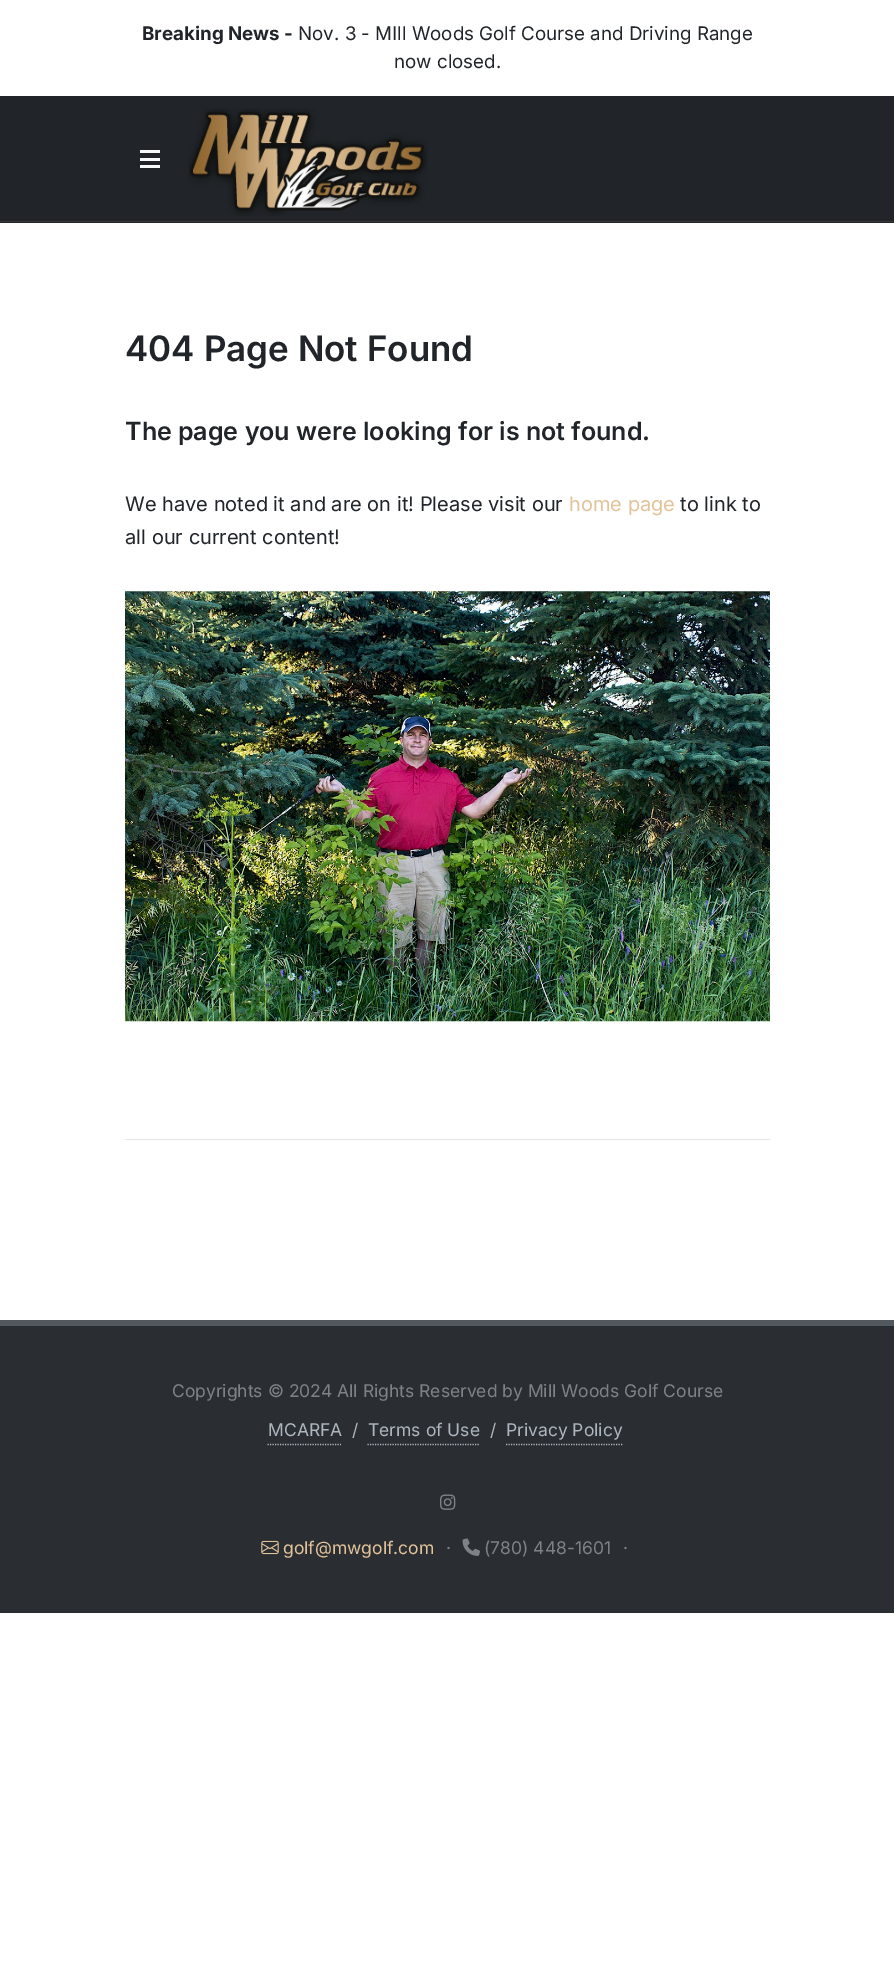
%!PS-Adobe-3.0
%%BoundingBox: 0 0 894 1975
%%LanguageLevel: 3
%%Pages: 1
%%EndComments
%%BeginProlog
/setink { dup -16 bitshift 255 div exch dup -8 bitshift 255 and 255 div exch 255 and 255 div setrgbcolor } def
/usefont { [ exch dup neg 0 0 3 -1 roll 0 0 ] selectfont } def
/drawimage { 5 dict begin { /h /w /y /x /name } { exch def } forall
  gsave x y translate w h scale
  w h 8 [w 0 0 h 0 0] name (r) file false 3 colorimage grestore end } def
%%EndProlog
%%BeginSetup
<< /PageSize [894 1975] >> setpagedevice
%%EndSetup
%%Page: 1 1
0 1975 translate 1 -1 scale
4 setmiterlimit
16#FFFFFF setink
0 0 894 1975 rectfill
/Inter-Bold 18.75 usefont
16#212529 setink
142 40 moveto (Breaking News -) show
/Inter-Regular 18.75 usefont
298 40 moveto (Nov. 3 - MIll Woods Golf Course and Driving Range) show
394 68 moveto (now closed.) show
[
    [0 96 894 127 16#212529]
    [0 221 894 1 16#373B3E]
    [140 158 20 3 16#F8F9FA]
    [140 150 20 3 16#F8F9FA]
    [140 165 20 3 16#F8F9FA]
] { aload pop setink rectfill } forall
(img1.raw) 188 108 240 108 drawimage
/Inter-SemiBold 35 usefont
16#212529 setink
125 361 moveto (404 Page Not Found) show
/Inter-SemiBold 25 usefont
125 440 moveto (The page you were looking for is not found.) show
/Inter-Regular 20 usefont
125 511 moveto (We have noted it and are on it! Please visit our) show
16#E2C39A setink
569 511 moveto (home page) show
16#212529 setink
680 511 moveto (to link to) show
125 544 moveto (all our current content!) show
(img2.raw) 125 591 645 431 drawimage
[
    [125 1139 645 1 16#E6E6E6]
    [0 1320 894 6 16#52585D]
    [0 1326 894 287 16#2A2E33]
] { aload pop setink rectfill } forall
/Inter-Regular 17.5 usefont
16#7F8285 setink
172 1397 moveto (Copyrights © 2024 All Rights Reserved by Mill Woods Golf Course) show
16#ADB5BD setink
1.2 setlinewidth
[1.25 1.25] 0 setdash
267.5 1444.5 moveto 341 1444.5 lineto stroke
268 1436 moveto (MCARFA) show
352 1436 moveto (/) show
367.5 1444.5 moveto 480 1444.5 lineto stroke
368 1436 moveto (Terms of Use) show
490 1436 moveto (/) show
506 1444.5 moveto 622.5 1444.5 lineto stroke
506 1436 moveto (Privacy Policy) show
(img3.raw) 440 1494 16 16 drawimage
(img4.raw) 261 1540 18 15 drawimage
16#E2C39A setink
283 1554 moveto (golf@mwgolf.com) show
16#7F8285 setink
446 1554 moveto (·) show
(img5.raw) 462 1538 18 18 drawimage
484 1554 moveto (\(780\) 448-1601) show
623 1554 moveto (·) show
showpage
%%EOF
